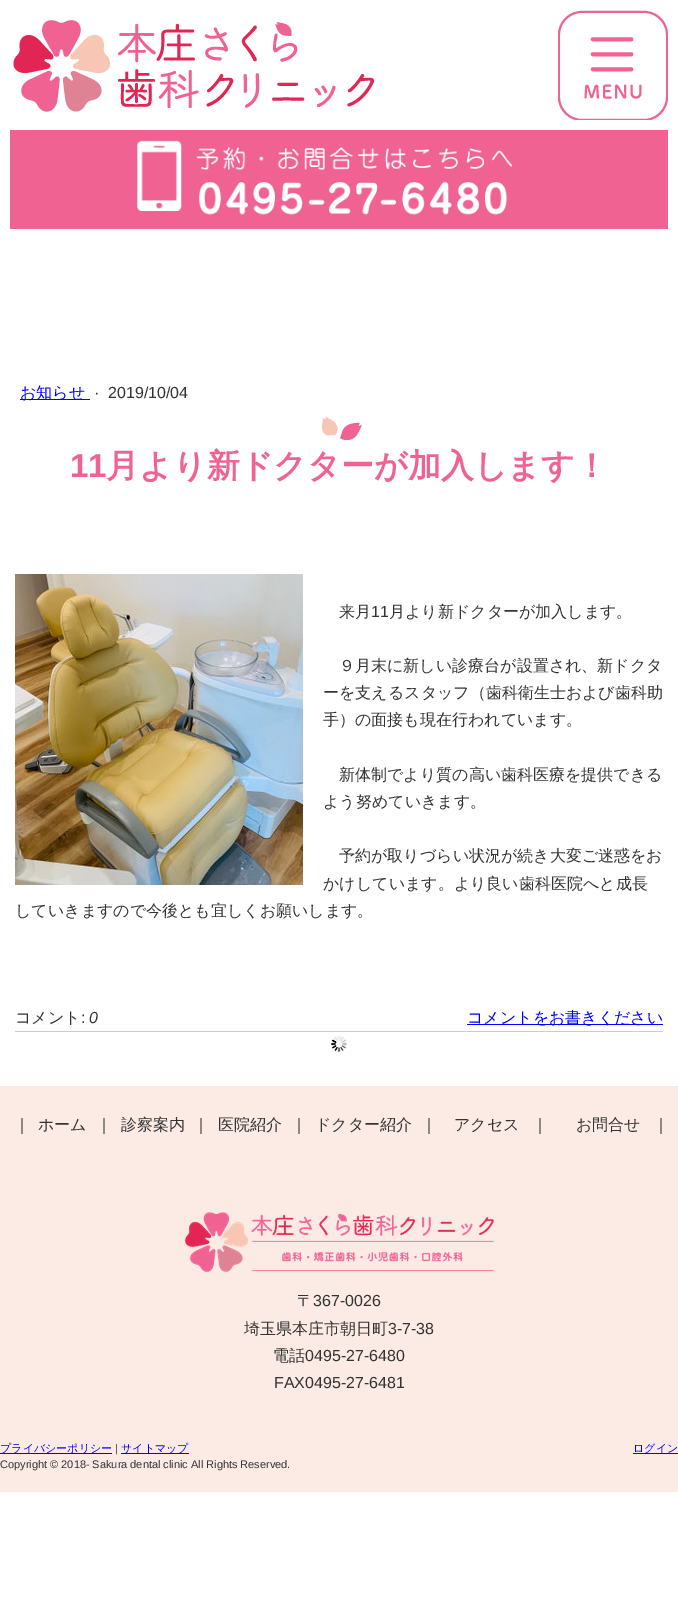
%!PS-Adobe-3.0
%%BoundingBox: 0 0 678 1609
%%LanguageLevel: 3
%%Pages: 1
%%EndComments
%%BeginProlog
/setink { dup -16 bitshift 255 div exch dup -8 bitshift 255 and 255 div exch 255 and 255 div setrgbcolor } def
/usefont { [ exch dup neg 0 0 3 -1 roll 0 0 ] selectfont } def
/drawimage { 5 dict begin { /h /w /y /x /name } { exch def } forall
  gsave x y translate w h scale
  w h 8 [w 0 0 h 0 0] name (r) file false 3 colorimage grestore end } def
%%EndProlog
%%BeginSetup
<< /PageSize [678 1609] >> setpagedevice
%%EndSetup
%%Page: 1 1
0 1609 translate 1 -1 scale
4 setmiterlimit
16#FFFFFF setink
0 0 678 1609 rectfill
(img1.raw) 13 20 361 92 drawimage
(img2.raw) 558 10 110 110 drawimage
(img3.raw) 10 130 658 99 drawimage
16#0000FF setink
20 399 70 1 rectfill
/WenQuanYiZenHei-Medium 16 usefont
20 398 moveto (お知らせ) show
/LiberationSans-Regular 16 usefont
16#333333 setink
94 398 moveto (·) show
108 398 moveto (2019/10/04) show
(img4.raw) 322 416 40 24 drawimage
/LiberationSans-Bold 33 usefont
16#F06292 setink
70 477 moveto (11) show
/WenQuanYiZenHei-Bold 33 usefont
106 477 moveto (月より新ドクターが加入します！) show
(img5.raw) 15 574 288 311 drawimage
/WenQuanYiZenHei-Medium 16 usefont
16#333333 setink
339 617 moveto (来月) show
/LiberationSans-Regular 16 usefont
371 617 moveto (11) show
/WenQuanYiZenHei-Medium 16 usefont
[
    [(月より新ドクターが加入します。) 389 617]
    [(９月末に新しい診療台が設置され、新ドクタ) 339 671]
    [(ーを支えるスタッフ（歯科衛生士および歯科助) 323 698]
    [(手）の面接も現在行われています。) 323 725]
    [(新体制でより質の高い歯科医療を提供できる) 339 780]
    [(よう努めていきます。) 323 807]
    [(予約が取りづらい状況が続き大変ご迷惑をお) 339 861]
    [(かけしています。より良い歯科医院へと成長) 323 889]
    [(していきますので今後とも宜しくお願いします。) 15 916]
    [(コメント) 15 1023]
] { aload pop moveto show } forall
/LiberationSans-Regular 16 usefont
81 1023 moveto (:) show
/LiberationSans-Italic 16 usefont
89 1023 moveto (0) show
16#0000FF setink
467 1024 196 1 rectfill
/WenQuanYiZenHei-Medium 16 usefont
467 1023 moveto (コメントをお書きください) show
(img6.raw) 331 1036 16 16 drawimage
16#CCCCCC setink
15 1031 648 1 rectfill
16#FCEBE5 setink
0 1086 678 406 rectfill
16#333333 setink
[
    [(｜) 14 1130]
    [(ホーム) 38 1130]
    [(｜) 96 1130]
    [(診察案内) 121 1130]
    [(｜) 193 1130]
    [(医院紹介) 218 1130]
    [(｜) 291 1130]
    [(ドクター紹介) 315 1130]
    [(｜) 421 1130]
    [(アクセス) 454 1130]
    [(｜) 532 1130]
    [(お問合せ) 576 1130]
    [(｜) 653 1130]
] { aload pop moveto show } forall
(img7.raw) 184 1212 310 60 drawimage
297 1306 moveto (〒) show
/LiberationSans-Regular 16 usefont
313 1306 moveto (367-0026) show
/WenQuanYiZenHei-Medium 16 usefont
244 1334 moveto (埼玉県本庄市朝日町) show
/LiberationSans-Regular 16 usefont
388 1334 moveto (3-7-38) show
/WenQuanYiZenHei-Medium 16 usefont
273 1361 moveto (電話) show
/LiberationSans-Regular 16 usefont
305 1361 moveto (0495-27-6480) show
274 1388 moveto (FAX0495-27-6481) show
16#0000FF setink
0 1453 112 1 rectfill
/WenQuanYiZenHei-Medium 11 usefont
0 1452 moveto (プライバシーポリシー) show
/LiberationSans-Regular 11 usefont
16#333333 setink
115 1452 moveto (|) show
16#0000FF setink
121 1453 68 1 rectfill
/WenQuanYiZenHei-Medium 11 usefont
121 1452 moveto (サイトマップ) show
/LiberationSans-Regular 11 usefont
16#333333 setink
0 1468 moveto (Copyright © 2018- Sakura dental clinic All Rights Reserved.) show
16#0000FF setink
633 1453 45 1 rectfill
/WenQuanYiZenHei-Medium 11 usefont
633 1452 moveto (ログイン) show
showpage
%%EOF
